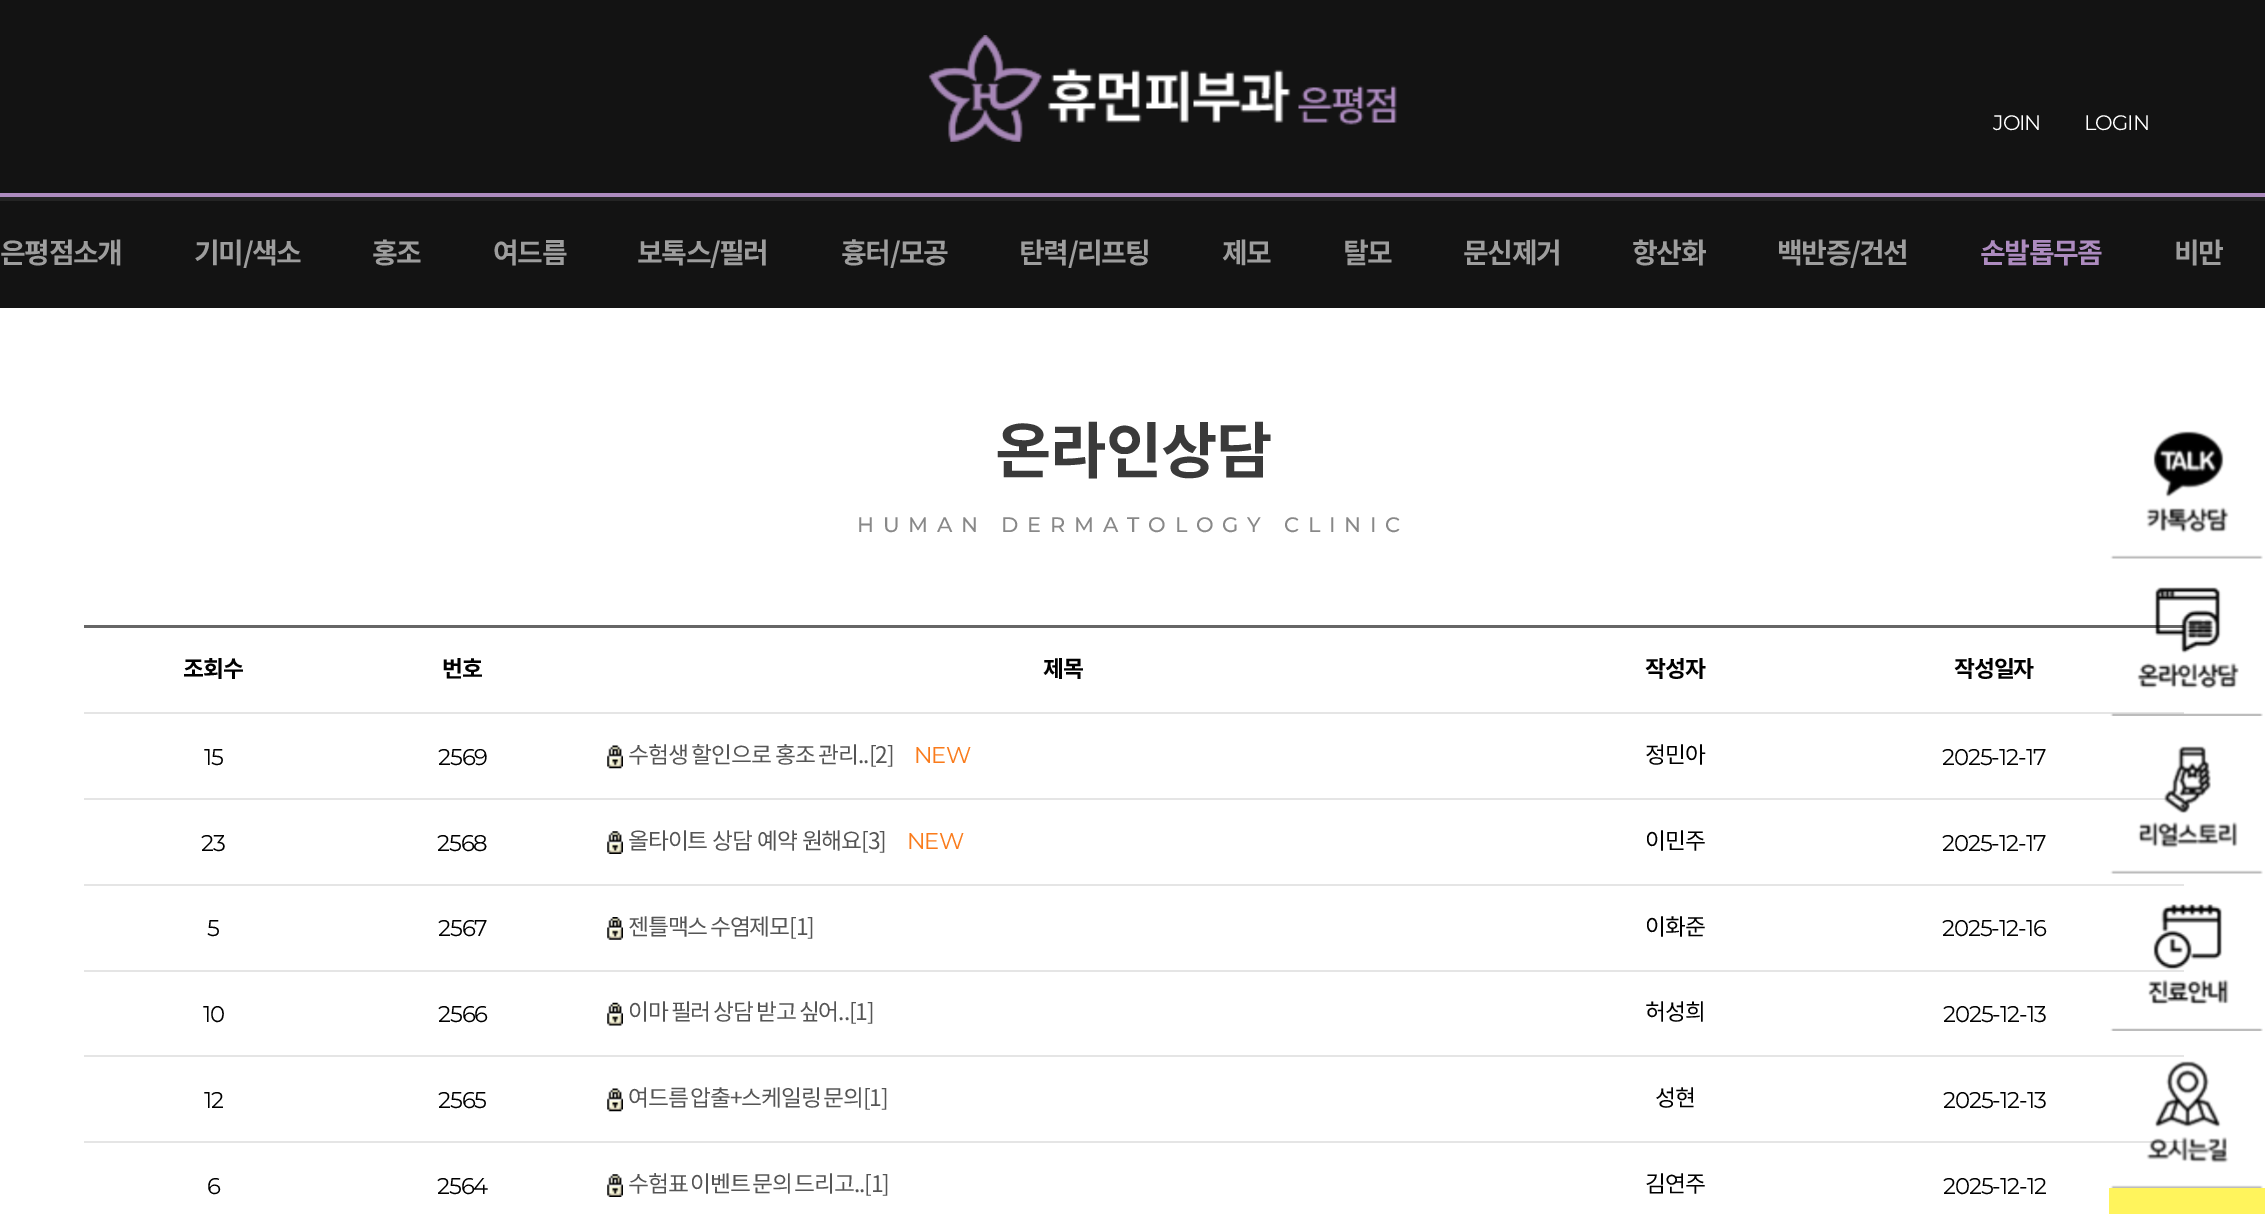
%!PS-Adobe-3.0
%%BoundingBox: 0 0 2265 1214
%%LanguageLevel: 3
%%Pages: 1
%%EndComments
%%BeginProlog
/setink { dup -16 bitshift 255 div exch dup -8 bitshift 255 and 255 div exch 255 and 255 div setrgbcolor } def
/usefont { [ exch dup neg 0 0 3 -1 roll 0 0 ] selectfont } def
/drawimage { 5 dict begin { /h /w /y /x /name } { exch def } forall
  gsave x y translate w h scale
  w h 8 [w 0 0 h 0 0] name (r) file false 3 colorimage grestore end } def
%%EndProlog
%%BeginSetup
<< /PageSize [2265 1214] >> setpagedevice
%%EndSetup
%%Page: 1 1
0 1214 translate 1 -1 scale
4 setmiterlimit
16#FFFFFF setink
0 0 2265 1214 rectfill
16#131313 setink
0 0 2265 193 rectfill
16#242424 setink
0 197 2265 4 rectfill
(img1.raw) 928 35 469 107 drawimage
/Montserrat-Regular 21 usefont
16#FFFFFF setink
1993 130 moveto -1 0 (JOIN) ashow
2084 130 moveto -1 0 (LOGIN) ashow
16#131313 setink
0 201 2265 107 rectfill
16#AD8BBF setink
0 193 2265 4 rectfill
/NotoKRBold-Bold 28 usefont
16#9D9D9D setink
0 263 moveto -1.5 0 (은평점소개) ashow
194 263 moveto -1.5 0 (기미/색소) ashow
372 263 moveto -1.5 0 (홍조) ashow
493 263 moveto -1.5 0 (여드름) ashow
637 263 moveto -1.5 0 (보톡스/필러) ashow
841 263 moveto -1.5 0 (흉터/모공) ashow
1019 263 moveto -1.5 0 (탄력/리프팅) ashow
1222 263 moveto -1.5 0 (제모) ashow
1343 263 moveto -1.5 0 (탈모) ashow
1463 263 moveto -1.5 0 (문신제거) ashow
1632 263 moveto -1.5 0 (항산화) ashow
1777 263 moveto -1.5 0 (백반증/건선) ashow
16#AD8BBF setink
1980 263 moveto -1.5 0 (손발톱무좀) ashow
16#9D9D9D setink
2174 263 moveto -1.5 0 (비만) ashow
/NotoKRBold-Bold 61.25 usefont
16#3A3A3A setink
995 473 moveto -1.1 0 (온라인상담) ashow
/Montserrat-Medium 21 usefont
16#888888 setink
857 532 moveto 8.75 0 (HUMAN DERMATOLOGY CLINIC) ashow
16#666666 setink
84 625 2100 3 rectfill
16#E5E5E5 setink
84 712 2100 2 rectfill
/NotoKRBold-Bold 22.75 usefont
16#000000 setink
183 677 moveto -1.1 0 (조회수) ashow
442 677 moveto -1.1 0 (번호) ashow
1043 677 moveto -1.1 0 (제목) ashow
1645 677 moveto -1.1 0 (작성자) ashow
1954 677 moveto -1.1 0 (작성일자) ashow
16#E5E5E5 setink
84 798 2100 2 rectfill
/Montserrat-Regular 22.75 usefont
16#000000 setink
204 765 moveto -1.1 0 (15) ashow
438 765 moveto -1.1 0 (2569) ashow
(img2.raw) 607 745 16 24 drawimage
/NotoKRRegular-Regular 22.75 usefont
16#555555 setink
628 763 moveto -1.1 0 (수험생 할인으로 홍조 관리..[2]) ashow
/Montserrat-Regular 22.75 usefont
16#FA7B1B setink
914 763 moveto -1.1 0 (NEW) ashow
/NotoKRRegular-Regular 22.75 usefont
16#000000 setink
1645 763 moveto -1.1 0 (정민아) ashow
/Montserrat-Regular 22.75 usefont
1942 765 moveto -1.1 0 (2025-12-17) ashow
16#E5E5E5 setink
84 884 2100 2 rectfill
16#000000 setink
201 851 moveto -1.1 0 (23) ashow
437 851 moveto -1.1 0 (2568) ashow
(img3.raw) 607 831 16 23 drawimage
/NotoKRRegular-Regular 22.75 usefont
16#555555 setink
628 849 moveto 1 0 32 -1.1 0 (올타이트 상담 예약 원해요[3]) awidthshow
/Montserrat-Regular 22.75 usefont
16#FA7B1B setink
907 849 moveto -1.1 0 (NEW) ashow
/NotoKRRegular-Regular 22.75 usefont
16#000000 setink
1645 849 moveto -1.1 0 (이민주) ashow
/Montserrat-Regular 22.75 usefont
1942 851 moveto -1.1 0 (2025-12-17) ashow
16#E5E5E5 setink
84 970 2100 2 rectfill
16#000000 setink
207 936 moveto -1.1 0 (5) ashow
438 936 moveto -1.1 0 (2567) ashow
(img4.raw) 607 917 16 23 drawimage
/NotoKRRegular-Regular 22.75 usefont
16#555555 setink
628 935 moveto -1.5 0 32 -1.1 0 (젠틀맥스 수염제모[1]) awidthshow
16#000000 setink
1645 935 moveto -1.1 0 (이화준) ashow
/Montserrat-Regular 22.75 usefont
1942 936 moveto -1.1 0 (2025-12-16) ashow
16#E5E5E5 setink
84 1055 2100 2 rectfill
16#000000 setink
203 1022 moveto -1.1 0 (10) ashow
438 1022 moveto -1.1 0 (2566) ashow
(img5.raw) 607 1002 16 24 drawimage
/NotoKRRegular-Regular 22.75 usefont
16#555555 setink
628 1020 moveto -1 0 32 -1.1 0 (이마 필러 상담 받고 싶어..[1]) awidthshow
16#000000 setink
1645 1020 moveto -1.1 0 (허성희) ashow
/Montserrat-Regular 22.75 usefont
1943 1022 moveto -1.1 0 (2025-12-13) ashow
16#E5E5E5 setink
84 1141 2100 2 rectfill
16#000000 setink
204 1108 moveto -1.1 0 (12) ashow
438 1108 moveto -1.1 0 (2565) ashow
(img2.raw) 607 1088 16 24 drawimage
/NotoKRRegular-Regular 22.75 usefont
16#555555 setink
628 1106 moveto -1.5 0 32 -1.1 0 (여드름 압출+스케일링 문의[1]) awidthshow
16#000000 setink
1655 1106 moveto -1.1 0 (성현) ashow
/Montserrat-Regular 22.75 usefont
1943 1108 moveto -1.1 0 (2025-12-13) ashow
207 1194 moveto -1.1 0 (6) ashow
437 1194 moveto -1.1 0 (2564) ashow
(img3.raw) 607 1174 16 23 drawimage
/NotoKRRegular-Regular 22.75 usefont
16#555555 setink
628 1192 moveto -1.5 0 32 -1.1 0 (수험표 이벤트 문의 드리고..[1]) awidthshow
16#000000 setink
1645 1192 moveto -1.1 0 (김연주) ashow
/Montserrat-Regular 22.75 usefont
1943 1194 moveto -1.1 0 (2025-12-12) ashow
(img6.raw) 2110 431 153 128 drawimage
(img7.raw) 2110 587 153 129 drawimage
(img8.raw) 2110 746 153 128 drawimage
(img9.raw) 2110 904 153 127 drawimage
(img10.raw) 2110 1061 153 127 drawimage
16#FFF45C setink
2109 1188 156 26 rectfill
showpage
%%EOF
